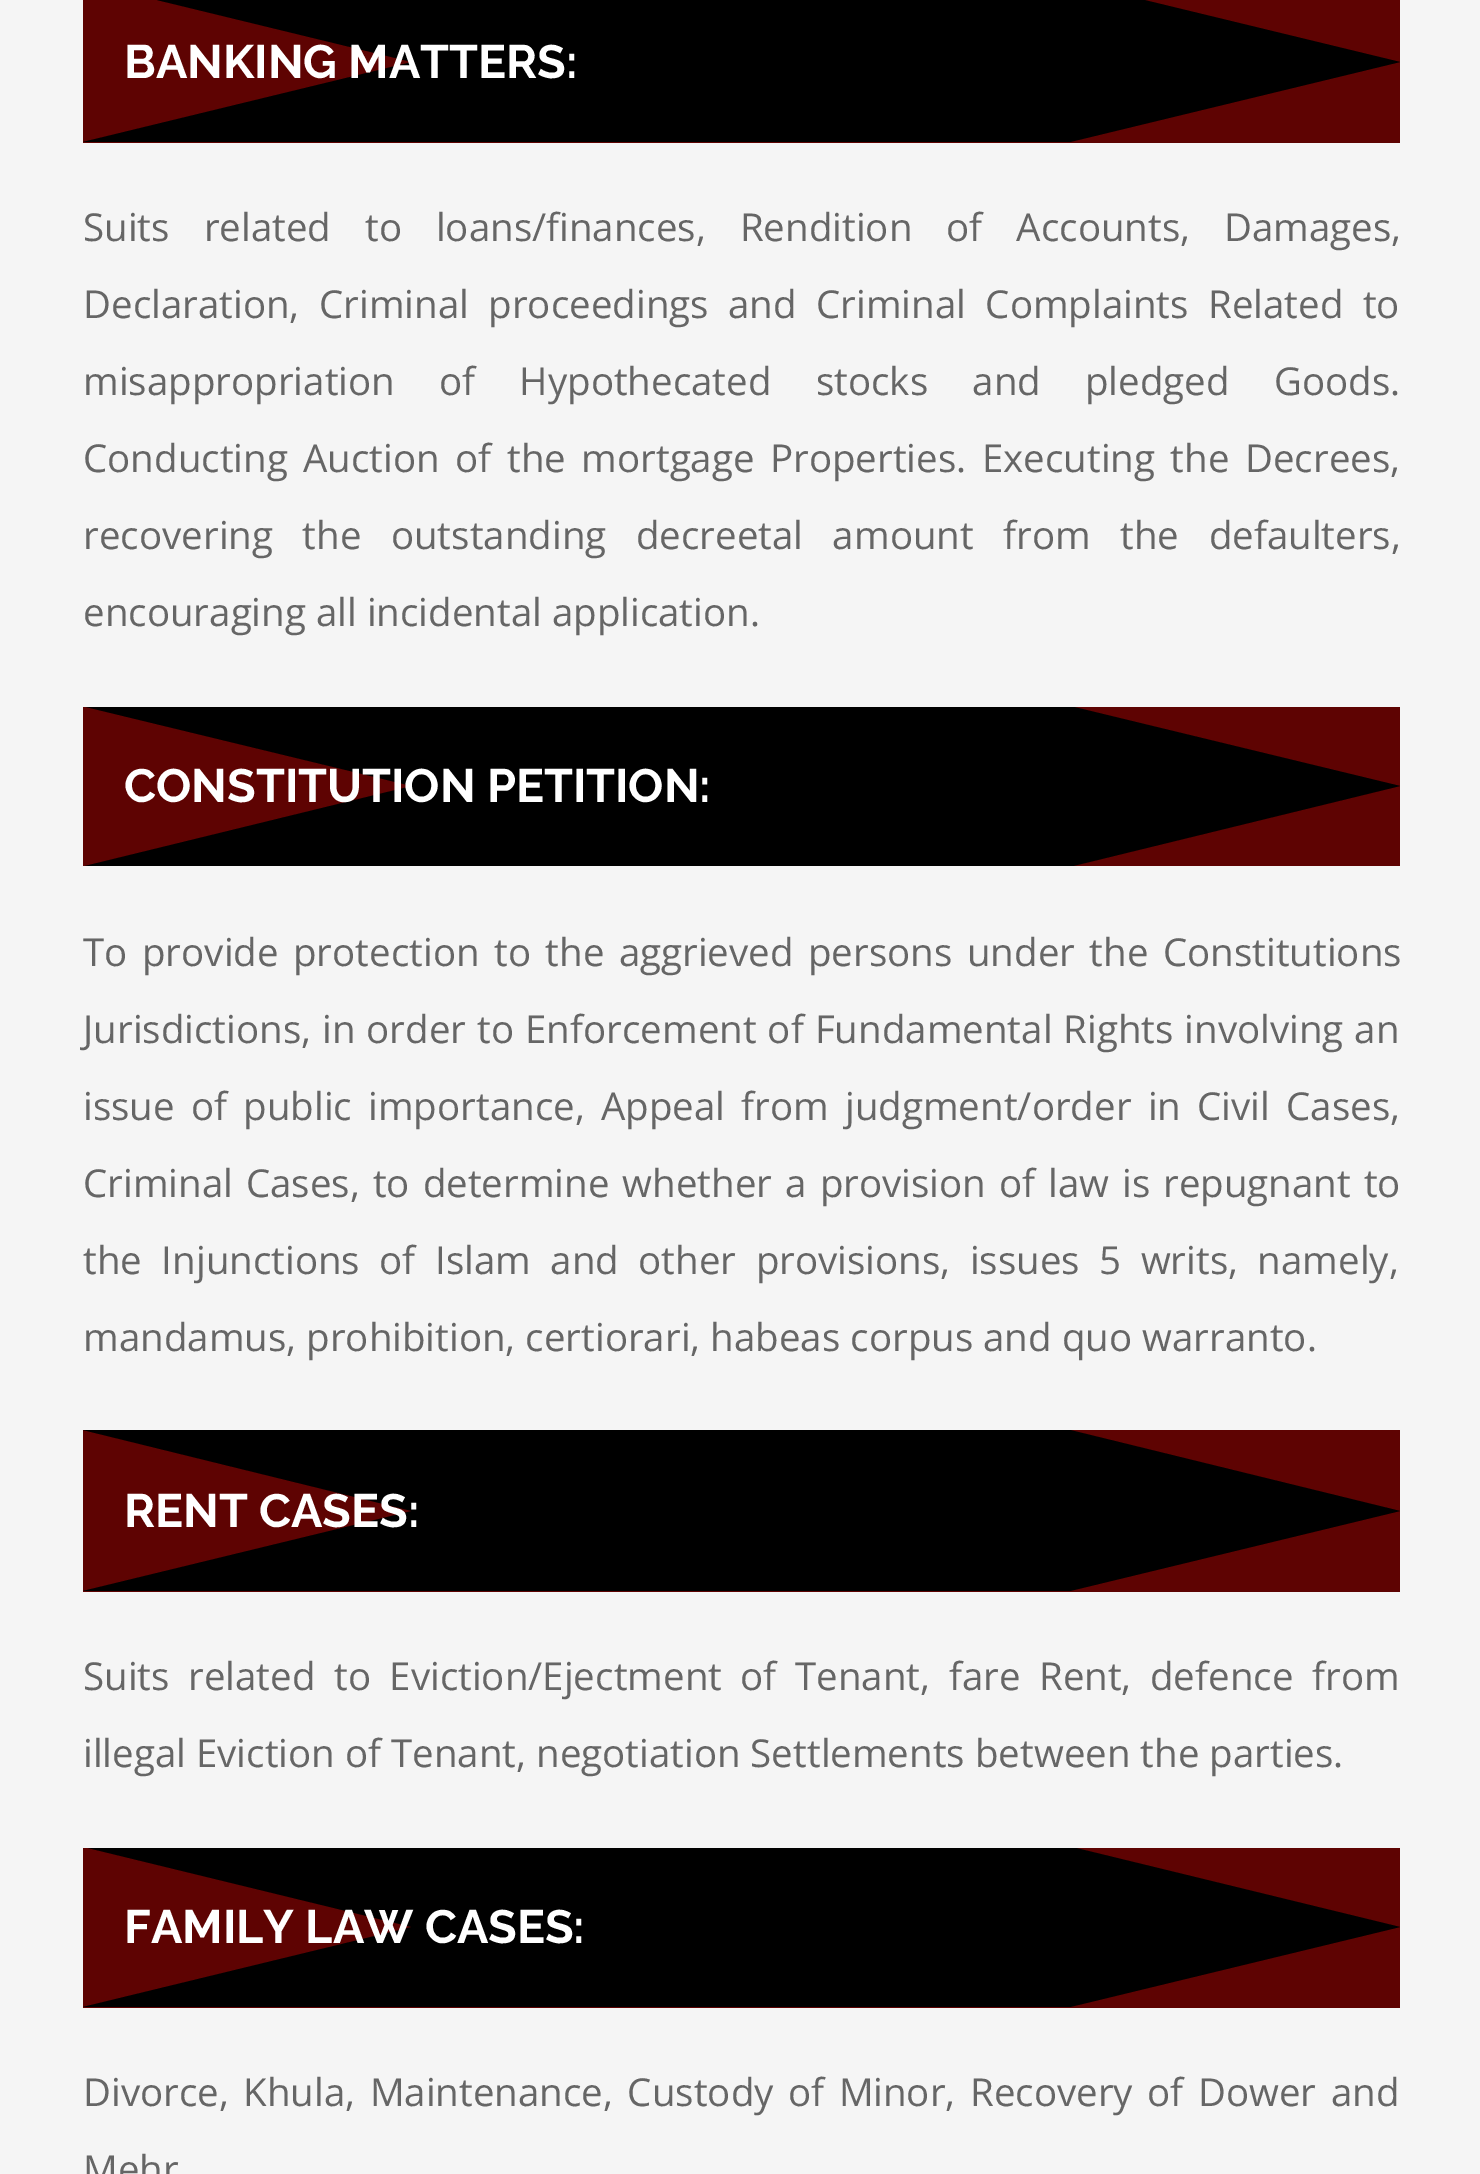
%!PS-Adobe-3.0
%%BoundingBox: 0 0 1480 2174
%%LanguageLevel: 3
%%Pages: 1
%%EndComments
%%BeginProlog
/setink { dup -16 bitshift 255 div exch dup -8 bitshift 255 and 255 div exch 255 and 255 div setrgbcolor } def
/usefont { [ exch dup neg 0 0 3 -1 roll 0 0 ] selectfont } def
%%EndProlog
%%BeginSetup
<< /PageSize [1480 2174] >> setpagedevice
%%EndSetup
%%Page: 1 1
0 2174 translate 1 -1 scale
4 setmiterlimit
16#F5F5F5 setink
0 0 1480 2174 rectfill
16#5E0302 setink
83 0 1317 143 rectfill
16#000000 setink
1070 -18 moveto 1400 62 lineto 1070 142 lineto 83 142 lineto 412 62 lineto 83 -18 lineto closepath fill
/Raleway-Thin 46.75 usefont
16#FFFFFF setink
124 78 moveto (BANKING MATTERS:) show
/OpenSans-Regular 38.5 usefont
16#666666 setink
83 241 moveto 24 0 32 (Suits related to loans/finances, Rendition of Accounts, Damages,) widthshow
83 318 moveto 9.5 0 32 (Declaration, Criminal proceedings and Criminal Complaints Related to) widthshow
83 395 moveto 34.25 0 32 (misappropriation of Hypothecated stocks and pledged Goods.) widthshow
83 472 moveto 5.5 0 32 (Conducting Auction of the mortgage Properties. Executing the Decrees,) widthshow
83 549 moveto 19.5 0 32 (recovering the outstanding decreetal amount from the defaulters,) widthshow
83 626 moveto (encouraging all incidental application.) show
16#5E0302 setink
83 707 1317 159 rectfill
16#000000 setink
85 866 moveto 412 786 lineto 86 707 lineto 1074 707 lineto 1400 786 lineto 1073 866 lineto closepath fill
/Raleway-Thin 46.75 usefont
16#FFFFFF setink
124 802 moveto (CONSTITUTION PETITION:) show
/OpenSans-Regular 38.5 usefont
16#666666 setink
83 966 moveto 4.5 0 32 (To provide protection to the aggrieved persons under the Constitutions) widthshow
83 1043 moveto 1 0 32 (Jurisdictions, in order to Enforcement of Fundamental Rights involving an) widthshow
83 1120 moveto 6.25 0 32 (issue of public importance, Appeal from judgment/order in Civil Cases,) widthshow
83 1197 moveto 3 0 32 (Criminal Cases, to determine whether a provision of law is repugnant to) widthshow
83 1274 moveto 9.5 0 32 (the Injunctions of Islam and other provisions, issues 5 writs, namely,) widthshow
83 1351 moveto (mandamus, prohibition, certiorari, habeas corpus and quo warranto.) show
16#5E0302 setink
83 1430 1317 162 rectfill
16#000000 setink
1070 1430 moveto 1400 1511 lineto 1070 1591 lineto 83 1591 lineto 412 1511 lineto 83 1430 lineto closepath fill
/Raleway-Thin 46.75 usefont
16#FFFFFF setink
124 1527 moveto (RENT CASES:) show
/OpenSans-Regular 38.5 usefont
16#666666 setink
83 1690 moveto 8.5 0 32 (Suits related to Eviction/Ejectment of Tenant, fare Rent, defence from) widthshow
83 1767 moveto (illegal Eviction of Tenant, negotiation Settlements between the parties.) show
16#5E0302 setink
83 1848 1317 160 rectfill
16#000000 setink
83 2007 moveto 412 1927 lineto 88 1848 lineto 1076 1848 lineto 1400 1927 lineto 1070 2007 lineto closepath fill
/Raleway-Thin 46.75 usefont
16#FFFFFF setink
124 1943 moveto (FAMILY LAW CASES:) show
/OpenSans-Regular 38.5 usefont
16#666666 setink
83 2106 moveto 4.5 0 32 (Divorce, Khula, Maintenance, Custody of Minor, Recovery of Dower and) widthshow
83 2183 moveto (Mehr) show
showpage
%%EOF
